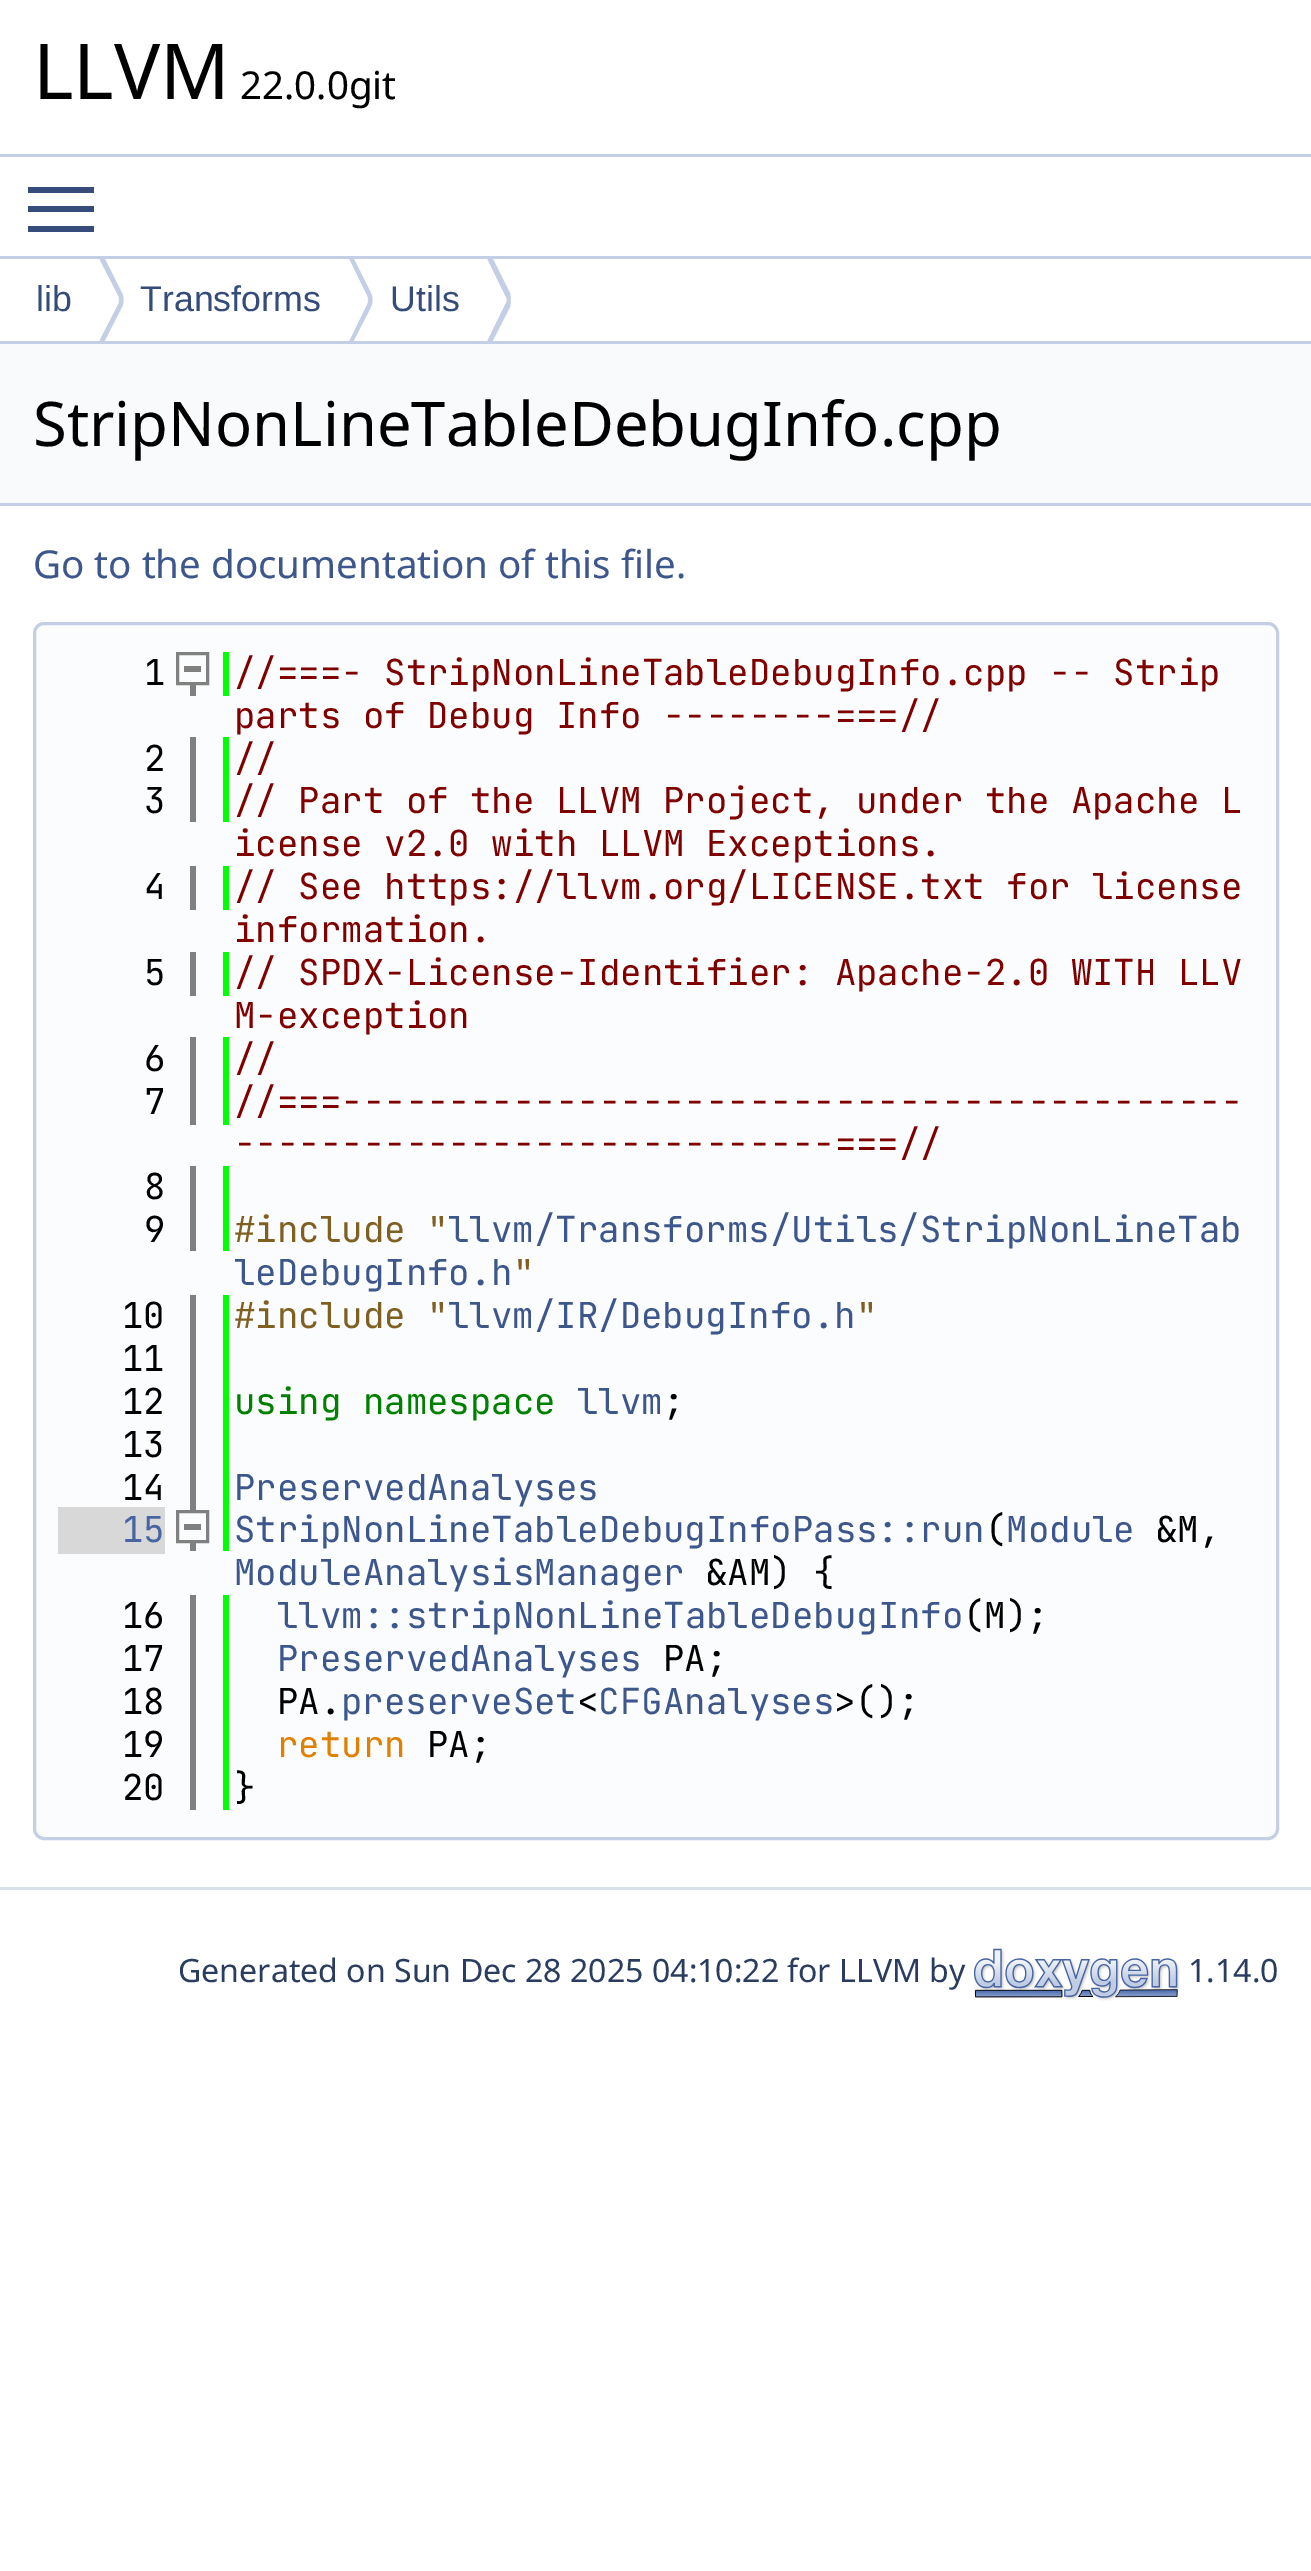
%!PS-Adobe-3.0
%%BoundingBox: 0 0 1311 2571
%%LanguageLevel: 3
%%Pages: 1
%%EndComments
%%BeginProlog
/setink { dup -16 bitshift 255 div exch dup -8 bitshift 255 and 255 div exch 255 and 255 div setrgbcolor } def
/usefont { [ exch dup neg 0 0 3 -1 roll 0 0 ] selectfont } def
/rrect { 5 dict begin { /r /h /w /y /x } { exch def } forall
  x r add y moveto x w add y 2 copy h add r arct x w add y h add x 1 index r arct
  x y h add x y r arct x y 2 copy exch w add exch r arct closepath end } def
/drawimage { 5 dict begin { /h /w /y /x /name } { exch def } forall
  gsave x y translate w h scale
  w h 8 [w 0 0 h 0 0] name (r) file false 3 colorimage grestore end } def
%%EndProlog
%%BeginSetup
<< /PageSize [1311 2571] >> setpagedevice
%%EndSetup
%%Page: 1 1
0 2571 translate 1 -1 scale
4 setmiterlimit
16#FFFFFF setink
0 0 1311 2571 rectfill
16#C4CFE5 setink
0 154 1311 3 rectfill
/NotoSans-Regular 77 usefont
16#000000 setink
33 99 moveto (LLVM) show
/NotoSans-Regular 38.5 usefont
240 99 moveto (22.0.0git) show
[
    [28 206 66 6 16#364D7C]
    [28 187 66 6 16#364D7C]
    [28 226 66 6 16#364D7C]
    [0 256 1311 3 16#C4CFE5]
    [0 341 1311 3 16#C4CFE5]
] { aload pop setink rectfill } forall
/LiberationSans-Regular 35.75 usefont
16#354C7B setink
36 311 moveto (lib) show
gsave
0 259 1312 82 rectclip
16#C4CFE5 setink
102 253 moveto 100 256 99 259 97 262 curveto 99 259 lineto 118 296 lineto 119 298 119 302 118 304 curveto 99 340 lineto 102 346 lineto 122 307 lineto 124 303 124 297 122 293 curveto closepath fill
grestore
16#FFFFFF setink
99 259 moveto 118 296 lineto 119 298 119 302 118 304 curveto 99 341 lineto 88 318 88 281 99 259 curveto closepath fill
16#354C7B setink
140 311 moveto (Transforms) show
gsave
0 259 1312 82 rectclip
16#C4CFE5 setink
351 253 moveto 349 259 lineto 367 296 lineto 368 298 368 302 367 304 curveto 349 341 lineto 351 346 lineto 371 307 lineto 373 303 373 297 371 293 curveto closepath fill
grestore
16#FFFFFF setink
349 259 moveto 367 296 lineto 368 298 368 302 367 304 curveto 349 341 lineto 337 318 337 281 349 259 curveto closepath fill
16#354C7B setink
390 311 moveto (Utils) show
gsave
0 259 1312 82 rectclip
16#C4CFE5 setink
490 253 moveto 487 259 lineto 505 296 lineto 507 298 507 302 505 304 curveto 487 340 lineto 490 346 lineto 510 307 lineto 511 303 511 297 510 293 curveto closepath fill
grestore
16#FFFFFF setink
487 259 moveto 505 296 lineto 507 298 507 302 505 304 curveto 487 341 lineto 475 318 475 281 487 259 curveto closepath fill
16#F9FAFC setink
0 344 1311 159 rectfill
16#C4CFE5 setink
0 503 1311 3 rectfill
/NotoSans-Regular 61.6 usefont
16#000000 setink
33 446 moveto (StripNonLineTableDebugInfo.cpp) show
/NotoSans-Regular 38.5 usefont
16#3D578C setink
33 578 moveto (Go to the documentation of this file.) show
16#FBFCFD setink
34.5 623.5 1243 1215 9.5 rrect gsave fill grestore
16#C4CFE5 setink
3 setlinewidth
stroke
16#808080 setink
190 685 6 11 rectfill
16#00FF00 setink
223 652 6 44 rectfill
/JetBrainsMono-Regular 35.75 usefont
16#000000 setink
144 685 moveto (1) show
16#808080 setink
177.5 653.5 30 30 rectstroke
184 666 17 6 rectfill
16#800000 setink
234 685 moveto (//===- StripNonLineTableDebugInfo.cpp -- Strip) show
234 728 moveto (parts of Debug Info --------===//) show
16#808080 setink
190 737 6 85 rectfill
16#00FF00 setink
223 737 6 85 rectfill
16#000000 setink
144 771 moveto (2) show
16#800000 setink
234 771 moveto (//) show
16#000000 setink
144 813 moveto (3) show
16#800000 setink
234 813 moveto (// Part of the LLVM Project, under the Apache L) show
234 856 moveto (icense v2.0 with LLVM Exceptions.) show
16#808080 setink
190 866 6 44 rectfill
16#00FF00 setink
223 866 6 44 rectfill
16#000000 setink
144 899 moveto (4) show
16#800000 setink
234 899 moveto (// See https://llvm.org/LICENSE.txt for license) show
234 942 moveto (information.) show
16#808080 setink
190 952 6 44 rectfill
16#00FF00 setink
223 952 6 44 rectfill
16#000000 setink
144 985 moveto (5) show
16#800000 setink
234 985 moveto (// SPDX-License-Identifier: Apache-2.0 WITH LLV) show
234 1028 moveto (M-exception) show
16#808080 setink
190 1037 6 88 rectfill
16#00FF00 setink
223 1037 6 88 rectfill
16#000000 setink
144 1071 moveto (6) show
16#800000 setink
234 1071 moveto (//) show
16#000000 setink
144 1114 moveto (7) show
16#800000 setink
234 1114 moveto (//===------------------------------------------) show
234 1156 moveto (----------------------------===//) show
16#808080 setink
190 1166 6 85 rectfill
16#00FF00 setink
223 1166 6 85 rectfill
16#000000 setink
144 1199 moveto (8) show
144 1242 moveto (9) show
16#806020 setink
234 1242 moveto (#include ") show
16#3D578C setink
448 1242 moveto (llvm/Transforms/Utils/StripNonLineTab) show
234 1285 moveto (leDebugInfo.h) show
16#806020 setink
513 1285 moveto (") show
16#808080 setink
190 1295 6 215 rectfill
16#00FF00 setink
223 1295 6 256 rectfill
16#000000 setink
122 1328 moveto (10) show
16#806020 setink
234 1328 moveto (#include ") show
16#3D578C setink
448 1328 moveto (llvm/IR/DebugInfo.h) show
16#806020 setink
856 1328 moveto (") show
16#000000 setink
122 1371 moveto (11) show
122 1414 moveto (12) show
16#008000 setink
234 1414 moveto (using namespace) show
16#3D578C setink
577 1414 moveto (llvm) show
16#000000 setink
[
    [(;) 663 1414]
    [(13) 122 1457]
    [(14) 122 1500]
] { aload pop moveto show } forall
16#3D578C setink
234 1500 moveto (PreservedAnalyses) show
234 1542 moveto (StripNonLineTableDebugInfoPass::run Module) show
16#000000 setink
985 1542 moveto (\() show
16#808080 setink
190 1543 6 8 rectfill
16#D8D8D8 setink
58 1507 107 47 rectfill
16#4665A2 setink
122 1542 moveto (15) show
16#808080 setink
177.5 1511.5 30 30 rectstroke
184 1524 17 6 rectfill
16#000000 setink
1156 1542 moveto (&M,) show
16#3D578C setink
234 1585 moveto (ModuleAnalysisManager) show
16#000000 setink
706 1585 moveto (&AM\) {) show
16#808080 setink
190 1595 6 215 rectfill
16#00FF00 setink
223 1595 6 215 rectfill
16#000000 setink
122 1628 moveto (16) show
16#3D578C setink
277 1628 moveto (llvm::stripNonLineTableDebugInfo) show
16#000000 setink
963 1628 moveto (\(M\);) show
122 1671 moveto (17) show
16#3D578C setink
277 1671 moveto (PreservedAnalyses) show
16#000000 setink
[
    [(PA;) 663 1671]
    [(18) 122 1714]
    [(PA.) 277 1714]
] { aload pop moveto show } forall
16#3D578C setink
341 1714 moveto (preserveSet CFGAnalyses) show
16#000000 setink
[
    [(>\(\);) 834 1714]
    [(<) 577 1714]
    [(19) 122 1757]
] { aload pop moveto show } forall
16#E08000 setink
277 1757 moveto (return) show
16#000000 setink
[
    [(PA;) 427 1757]
    [(20) 122 1800]
    [(}) 234 1800]
] { aload pop moveto show } forall
16#D9E0EE setink
0 1887 1311 3 rectfill
/NotoSans-Regular 32.1 usefont
16#2A3D61 setink
178 1982 moveto (Generated on Sun Dec 28 2025 04:10:22) show
787 1982 moveto (for LLVM by) show
(img1.raw) 974 1948 206 53 drawimage
1188 1982 moveto (1.14.0) show
showpage
%%EOF
